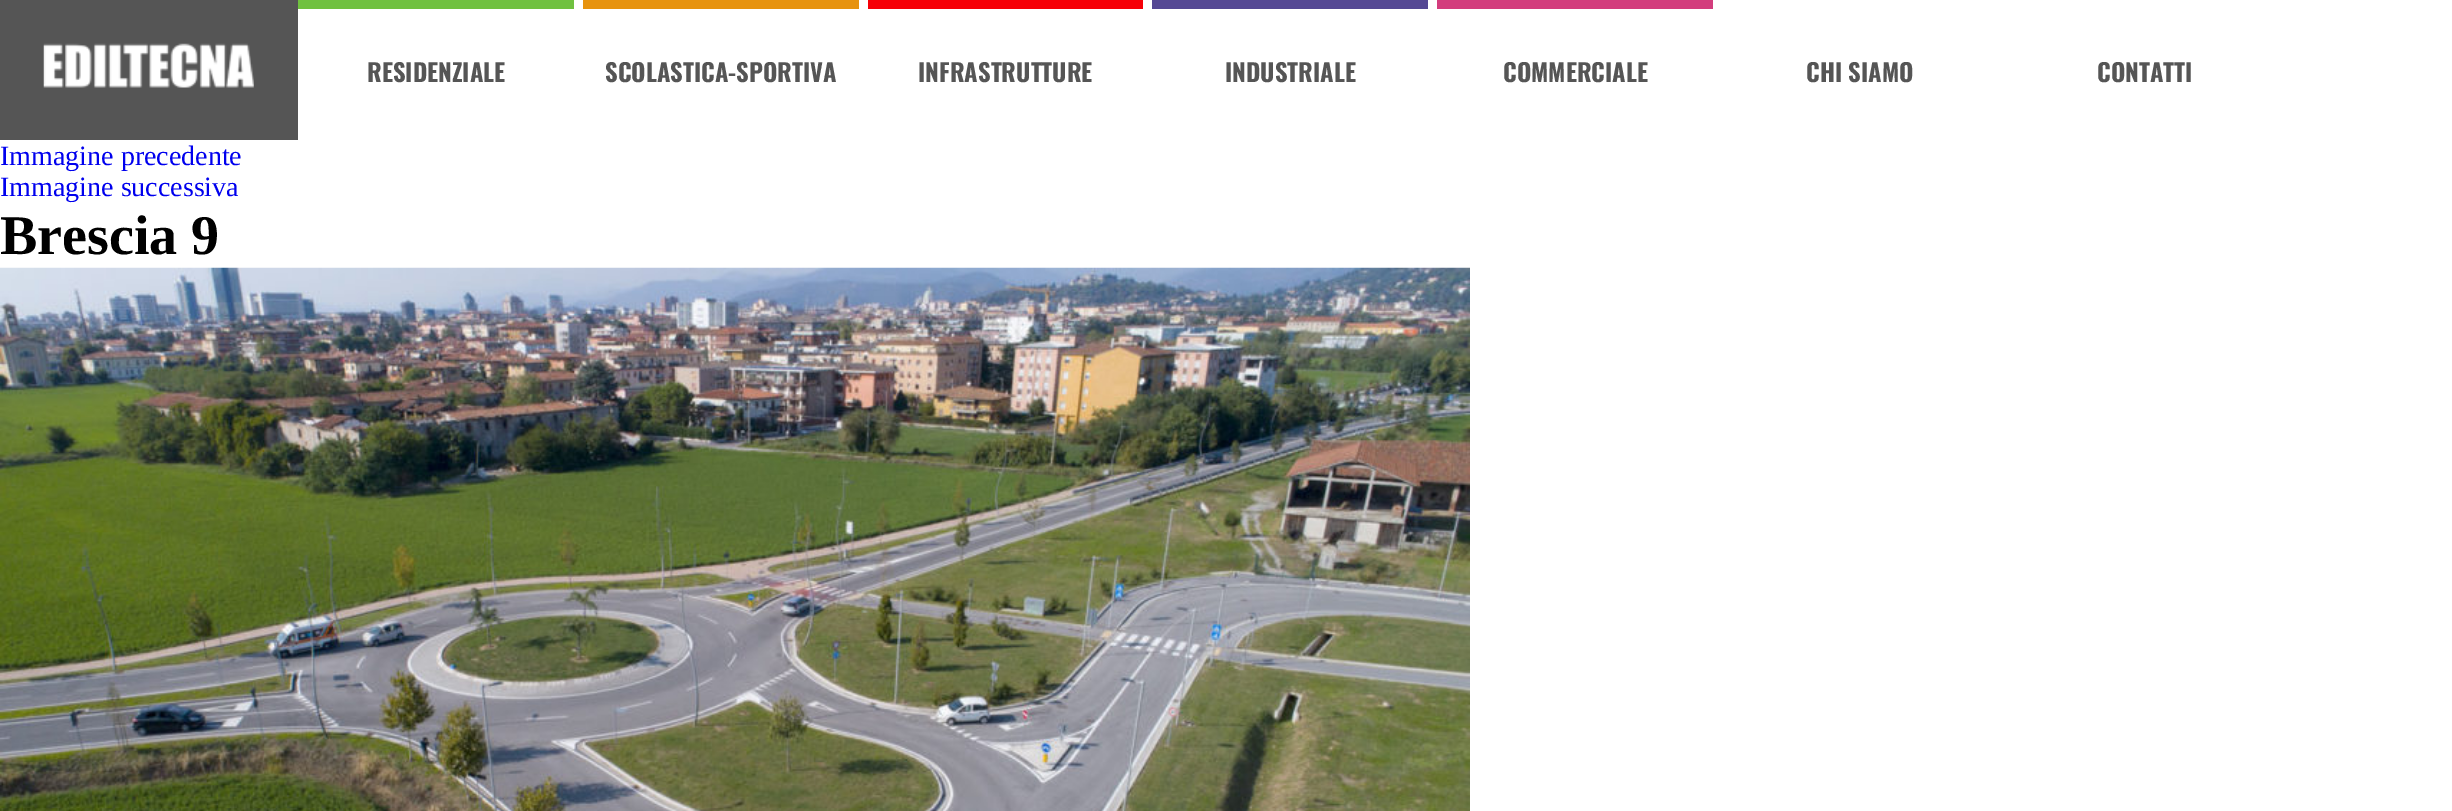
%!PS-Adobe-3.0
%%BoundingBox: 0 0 2452 811
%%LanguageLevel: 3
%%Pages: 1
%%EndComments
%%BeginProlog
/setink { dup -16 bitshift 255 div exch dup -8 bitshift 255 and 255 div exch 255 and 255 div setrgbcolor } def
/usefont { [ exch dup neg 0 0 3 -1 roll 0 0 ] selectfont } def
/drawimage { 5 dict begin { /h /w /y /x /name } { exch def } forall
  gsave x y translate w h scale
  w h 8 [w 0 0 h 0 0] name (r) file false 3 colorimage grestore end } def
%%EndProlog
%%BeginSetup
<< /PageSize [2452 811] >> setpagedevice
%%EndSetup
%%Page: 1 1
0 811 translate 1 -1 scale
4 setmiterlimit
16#FFFFFF setink
0 0 2452 811 rectfill
16#555555 setink
0 0 298 140 rectfill
(img1.raw) 43 43 211 45 drawimage
16#70C140 setink
298 0 276 9 rectfill
/Oswald-Bold 24.5 usefont
16#555555 setink
367 82 moveto (RESIDENZIALE) show
16#E7930F setink
583 0 276 9 rectfill
16#555555 setink
605 82 moveto (SCOLASTICA-SPORTIVA) show
16#F60007 setink
868 0 275 9 rectfill
16#555555 setink
918 82 moveto (INFRASTRUTTURE) show
16#554894 setink
1152 0 276 9 rectfill
16#555555 setink
1225 82 moveto (INDUSTRIALE) show
16#D33D7D setink
1437 0 276 9 rectfill
16#555555 setink
[
    [(COMMERCIALE) 1503 82]
    [(CHI SIAMO) 1806 82]
    [(CONTATTI) 2097 82]
] { aload pop moveto show } forall
/LiberationSerif-Regular 28 usefont
16#0000EE setink
0 165 moveto (Immagine precedente) show
0 196 moveto (Immagine successiva) show
/LiberationSerif-Bold 56 usefont
16#000000 setink
0 254 moveto (Brescia 9) show
(img2.raw) 0 267 1470 544 drawimage
showpage
%%EOF
